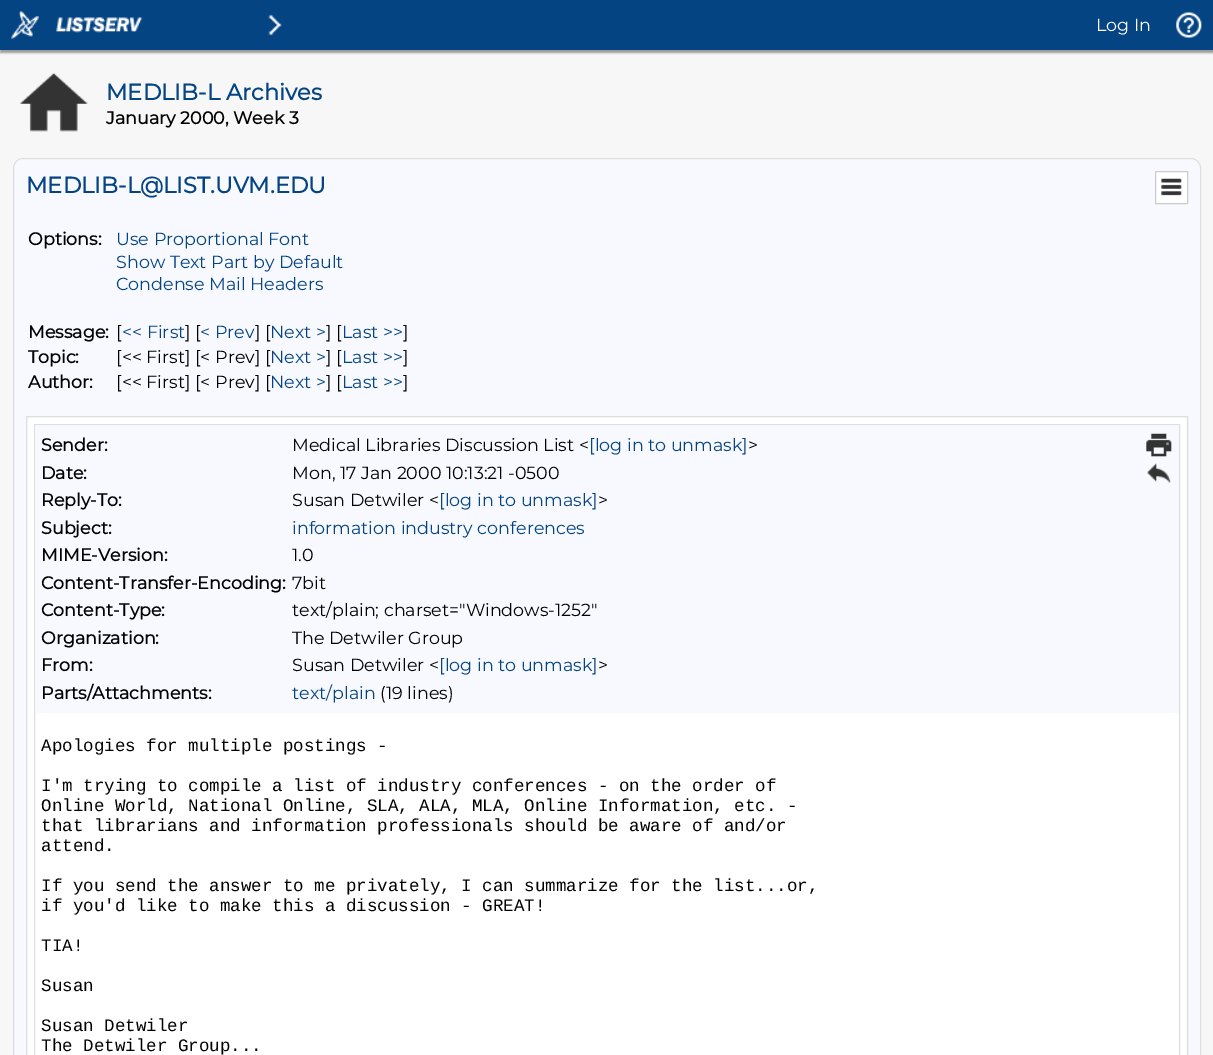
%!PS-Adobe-3.0
%%BoundingBox: 0 0 1213 1055
%%LanguageLevel: 3
%%Pages: 1
%%EndComments
%%BeginProlog
/setink { dup -16 bitshift 255 div exch dup -8 bitshift 255 and 255 div exch 255 and 255 div setrgbcolor } def
/usefont { [ exch dup neg 0 0 3 -1 roll 0 0 ] selectfont } def
/setalpha { dup .setfillconstantalpha .setstrokeconstantalpha } def
/rrect { 5 dict begin { /r /h /w /y /x } { exch def } forall
  x r add y moveto x w add y 2 copy h add r arct x w add y h add x 1 index r arct
  x y h add x y r arct x y 2 copy exch w add exch r arct closepath end } def
/softshadow { 12 dict begin { /a /b /q /h /w /y /x } { exch def } forall gsave /was 0 def
  9 -2 -9 { dup b mul 4 div /e exch def 1 sub .425 mul 2.718 exch exp 1 add a .99 .min exch div /now exch def
    1 1 now sub 1 was sub div sub setalpha /was now def
    w h .min e 2 mul add 0 gt { x e sub y e sub w e 2 mul add h e 2 mul add
      q e add b .6 mul add w h .min 2 div e add .min 0 .max rrect fill } if } for grestore end } def
/drawimage { 5 dict begin { /h /w /y /x /name } { exch def } forall
  gsave x y translate w h scale
  w h 8 [w 0 0 h 0 0] name (r) file false 3 colorimage grestore end } def
%%EndProlog
%%BeginSetup
<< /PageSize [1213 1055] /PageUsesTransparency true >> setpagedevice
%%EndSetup
%%Page: 1 1
0 .pushpdf14devicefilter
0 1055 translate 1 -1 scale
4 setmiterlimit
16#F7F7F7 setink
0 0 1213 1055 rectfill
16#999999 setink
0 3 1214 50 0 1 1 softshadow
16#054483 setink
0 0 1213 50 rectfill
(img1.raw) 11 11 28 28 drawimage
(img2.raw) 56 17 87 16 drawimage
(img3.raw) 268 14 14 22 drawimage
/Montserrat-Thin 17.5 usefont
16#FFFFFF setink
1096 31 moveto (Log In) show
(img4.raw) 1176 12 26 26 drawimage
(img5.raw) 20 73 68 59 drawimage
/Montserrat-Bold 22.5 usefont
16#054483 setink
106 100 moveto (MEDLIB-L Archives) show
/Montserrat-Bold 17.5 usefont
16#000000 setink
106 124 moveto (January 2000, Week 3) show
16#F7F9FE setink
13.5 158.5 1187 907 9.5 rrect gsave fill grestore
16#DEDEDE setink
stroke
/Montserrat-Bold 22.5 usefont
16#054483 setink
26 193 moveto (MEDLIB-L@LIST.UVM.EDU) show
16#FFFFFF setink
1155.5 171.5 moveto 1187.5 171.5 lineto 1187.5 203.5 lineto 1155.5 203.5 lineto closepath gsave fill grestore
16#CCCCCC setink
stroke
(img6.raw) 1161 178 21 18 drawimage
/Montserrat-Bold 17.5 usefont
16#000000 setink
28 245 moveto (Options:) show
/Montserrat-Thin 17.5 usefont
16#054483 setink
[
    [(Use Proportional Font) 116 245]
    [(Show Text Part by Default) 116 268]
    [(Condense Mail Headers) 116 290]
] { aload pop moveto show } forall
/Montserrat-Bold 17.5 usefont
16#000000 setink
28 338 moveto (Message:) show
/Montserrat-Thin 17.5 usefont
116 338 moveto ([) show
16#054483 setink
122 338 moveto (<< First) show
16#000000 setink
185 338 moveto (] [) show
16#054483 setink
200 338 moveto (< Prev) show
16#000000 setink
255 338 moveto (] [) show
16#054483 setink
270 338 moveto (Next >) show
16#000000 setink
326 338 moveto (] [) show
16#054483 setink
342 338 moveto (Last >>) show
16#000000 setink
403 338 moveto (]) show
/Montserrat-Bold 17.5 usefont
28 363 moveto (Topic:) show
/Montserrat-Thin 17.5 usefont
116 363 moveto ([<< First] [< Prev] [) show
16#054483 setink
270 363 moveto (Next >) show
16#000000 setink
326 363 moveto (] [) show
16#054483 setink
342 363 moveto (Last >>) show
16#000000 setink
403 363 moveto (]) show
/Montserrat-Bold 17.5 usefont
28 388 moveto (Author:) show
/Montserrat-Thin 17.5 usefont
116 388 moveto ([<< First] [< Prev] [) show
16#054483 setink
270 388 moveto (Next >) show
16#000000 setink
326 388 moveto (] [) show
16#054483 setink
342 388 moveto (Last >>) show
16#000000 setink
403 388 moveto (]) show
16#DEDEDE setink
26.5 416.5 1161 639 rectstroke
16#FFFFFF setink
28 418 1158 637 rectfill
16#DEDEDE setink
34.5 424.5 1145 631 rectstroke
16#F7F9FE setink
35 425 1144 288 rectfill
/Montserrat-Bold 17.5 usefont
16#000000 setink
41 451 moveto (Sender:) show
/Montserrat-Thin 17.5 usefont
292 451 moveto (Medical Libraries Discussion List <) show
16#054483 setink
589 451 moveto ([log in to unmask]) show
16#000000 setink
748 451 moveto (>) show
/Montserrat-Bold 17.5 usefont
41 479 moveto (Date:) show
/Montserrat-Thin 17.5 usefont
292 479 moveto (Mon, 17 Jan 2000 10:13:21 -0500) show
/Montserrat-Bold 17.5 usefont
41 506 moveto (Reply-To:) show
/Montserrat-Thin 17.5 usefont
292 506 moveto (Susan Detwiler <) show
16#054483 setink
439 506 moveto ([log in to unmask]) show
16#000000 setink
598 506 moveto (>) show
/Montserrat-Bold 17.5 usefont
41 534 moveto (Subject:) show
/Montserrat-Thin 17.5 usefont
16#054483 setink
292 534 moveto (information industry conferences) show
/Montserrat-Bold 17.5 usefont
16#000000 setink
41 561 moveto (MIME-Version:) show
/Montserrat-Thin 17.5 usefont
292 561 moveto (1.0) show
/Montserrat-Bold 17.5 usefont
41 589 moveto (Content-Transfer-Encoding:) show
/Montserrat-Thin 17.5 usefont
292 589 moveto (7bit) show
/Montserrat-Bold 17.5 usefont
41 616 moveto (Content-Type:) show
/Montserrat-Thin 17.5 usefont
292 616 moveto (text/plain; charset="Windows-1252") show
/Montserrat-Bold 17.5 usefont
41 644 moveto (Organization:) show
/Montserrat-Thin 17.5 usefont
292 644 moveto (The Detwiler Group) show
/Montserrat-Bold 17.5 usefont
41 671 moveto (From:) show
/Montserrat-Thin 17.5 usefont
292 671 moveto (Susan Detwiler <) show
16#054483 setink
439 671 moveto ([log in to unmask]) show
16#000000 setink
598 671 moveto (>) show
/Montserrat-Bold 17.5 usefont
41 699 moveto (Parts/Attachments:) show
/Montserrat-Thin 17.5 usefont
16#054483 setink
292 699 moveto (text/plain) show
16#000000 setink
380 699 moveto (\(19 lines\)) show
(img7.raw) 1146 433 26 24 drawimage
(img8.raw) 1147 463 24 20 drawimage
/LiberationMono-Regular 17.5 usefont
[
    [(Apologies for multiple postings -) 41 751]
    [(I'm trying to compile a list of industry conferences - on the order of) 41 791]
    [(Online World, National Online, SLA, ALA, MLA, Online Information, etc. -) 41 811]
    [(that librarians and information professionals should be aware of and/or) 41 831]
    [(attend.) 41 851]
    [(If you send the answer to me privately, I can summarize for the list...or,) 41 891]
    [(if you'd like to make this a discussion - GREAT!) 41 911]
    [(TIA!) 41 951]
    [(Susan) 41 991]
    [(Susan Detwiler) 41 1031]
    [(The Detwiler Group...) 41 1051]
] { aload pop moveto show } forall
.poppdf14devicefilter showpage
%%EOF
